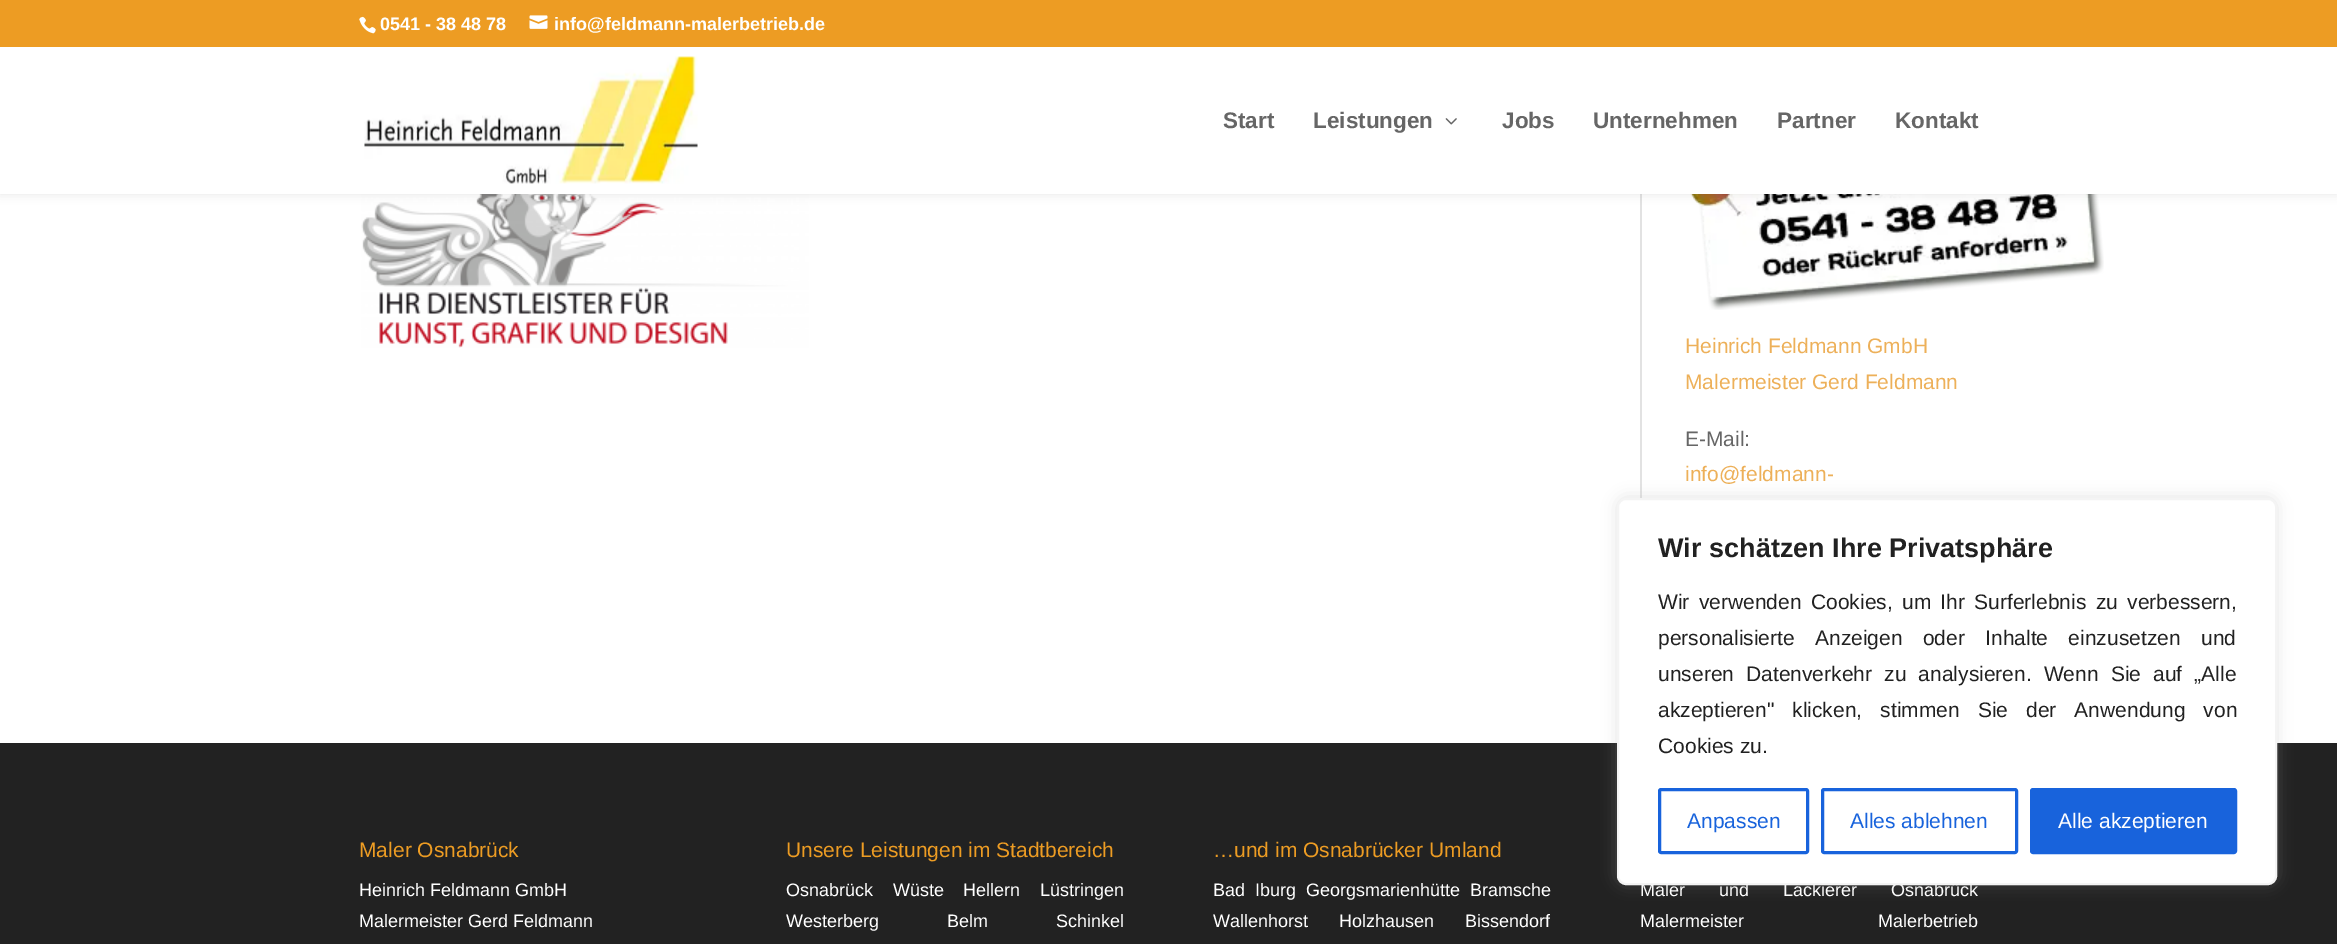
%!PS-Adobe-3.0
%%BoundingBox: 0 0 2337 944
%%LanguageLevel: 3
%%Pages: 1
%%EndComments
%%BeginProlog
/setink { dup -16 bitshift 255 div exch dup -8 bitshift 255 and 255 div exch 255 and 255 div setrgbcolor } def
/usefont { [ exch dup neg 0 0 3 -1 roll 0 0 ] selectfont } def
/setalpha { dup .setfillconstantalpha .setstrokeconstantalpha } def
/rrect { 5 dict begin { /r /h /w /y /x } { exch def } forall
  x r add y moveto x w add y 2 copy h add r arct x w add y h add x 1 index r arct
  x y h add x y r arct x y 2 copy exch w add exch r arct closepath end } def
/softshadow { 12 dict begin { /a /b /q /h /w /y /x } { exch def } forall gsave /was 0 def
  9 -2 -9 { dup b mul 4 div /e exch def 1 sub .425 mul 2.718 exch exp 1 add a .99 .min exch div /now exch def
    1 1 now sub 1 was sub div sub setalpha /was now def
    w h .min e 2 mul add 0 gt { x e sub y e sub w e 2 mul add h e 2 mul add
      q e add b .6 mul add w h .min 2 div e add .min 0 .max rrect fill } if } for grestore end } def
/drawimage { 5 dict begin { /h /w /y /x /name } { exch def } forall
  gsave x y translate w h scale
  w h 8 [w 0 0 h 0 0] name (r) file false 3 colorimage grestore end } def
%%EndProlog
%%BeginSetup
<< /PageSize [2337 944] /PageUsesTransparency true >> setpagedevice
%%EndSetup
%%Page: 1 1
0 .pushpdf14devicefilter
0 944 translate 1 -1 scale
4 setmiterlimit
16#FFFFFF setink
0 0 2337 944 rectfill
16#E2E2E2 setink
1640 194 2 304 rectfill
(img5.raw) 361 194 448 154 drawimage
(img6.raw) 1690 194 414 116 drawimage
16#000000 setink
0 47 2337 147 0 5 0.1 softshadow
16#ED9C23 setink
0 0 2337 47 rectfill
(img1.raw) 359 16 17 18 drawimage
/LiberationSans-Bold 18 usefont
16#FFFFFF setink
380 30 moveto (0541 - 38 48 78) show
(img2.raw) 529 15 19 14 drawimage
554 30 moveto (info@feldmann-malerbetrieb.de) show
0 47 2337 147 rectfill
(img3.raw) 364 56 334 128 drawimage
/LiberationSans-Bold 22.5 usefont
16#666666 setink
1223 128 moveto (Start) show
1313 128 moveto (Leistungen) show
(img4.raw) 1445 118 12 7 drawimage
[
    [(Jobs) 1502 128]
    [(Unternehmen) 1593 128]
    [(Partner) 1777 128]
    [(Kontakt) 1895 128]
] { aload pop moveto show } forall
/LiberationSans-Regular 21 usefont
16#EDB059 setink
1685 353 moveto (Heinrich Feldmann GmbH) show
1685 389 moveto (Malermeister Gerd Feldmann) show
16#666666 setink
1685 446 moveto (E-Mail:) show
16#EDB059 setink
1685 481 moveto (info@feldmann-) show
16#222222 setink
0 743 2337 201 rectfill
16#ED9C23 setink
359 857 moveto (Maler Osnabrück) show
/LiberationSans-Regular 18 usefont
16#FFFFFF setink
359 896 moveto (Heinrich Feldmann GmbH) show
359 927 moveto (Malermeister Gerd Feldmann) show
/LiberationSans-Regular 21 usefont
16#ED9C23 setink
786 857 moveto (Unsere Leistungen im Stadtbereich) show
/LiberationSans-Regular 18 usefont
16#FFFFFF setink
786 896 moveto 14.5 0 32 (Osnabrück Wüste Hellern Lüstringen) widthshow
786 927 moveto 63 0 32 (Westerberg Belm Schinkel) widthshow
/LiberationSans-Regular 21 usefont
16#ED9C23 setink
1213 857 moveto (…und im Osnabrücker Umland) show
/LiberationSans-Regular 18 usefont
16#FFFFFF setink
1213 896 moveto 5 0 32 (Bad Iburg Georgsmarienhütte Bramsche) widthshow
1213 927 moveto 26 0 32 (Wallenhorst Holzhausen Bissendorf) widthshow
1640 896 moveto 29 0 32 (Maler und Lackierer Osnabrück) widthshow
1640 927 moveto 129 0 32 (Malermeister Malerbetrieb) widthshow
16#ACABAB setink
1617 497 660 387 9 7.5 0.3 softshadow
16#FFFFFF setink
1618 499 658 385 8 rrect gsave fill grestore
16#F4F4F4 setink
2 setlinewidth
stroke
/LiberationSans-Bold 27 usefont
16#212121 setink
1658 557 moveto (Wir schätzen Ihre Privatsphäre) show
/LiberationSans-Regular 21 usefont
1658 609 moveto 3.5 0 32 (Wir verwenden Cookies, um Ihr Surferlebnis zu verbessern,) widthshow
1658 645 moveto 14.5 0 32 (personalisierte Anzeigen oder Inhalte einzusetzen und) widthshow
1658 681 moveto 6.25 0 32 (unseren Datenverkehr zu analysieren. Wenn Sie auf „Alle) widthshow
1658 717 moveto 12.25 0 32 (akzeptieren" klicken, stimmen Sie der Anwendung von) widthshow
1658 753 moveto (Cookies zu.) show
16#1863DC setink
3 setlinewidth
1659.5 789.5 148 63 1.5 rrect stroke
1687 828 moveto (Anpassen) show
1822.5 789.5 194 63 1.5 rrect stroke
1850 828 moveto (Alles ablehnen) show
2031.5 789.5 204 63 1.5 rrect gsave fill grestore
stroke
16#FFFFFF setink
2058 828 moveto (Alle akzeptieren) show
.poppdf14devicefilter showpage
%%EOF
